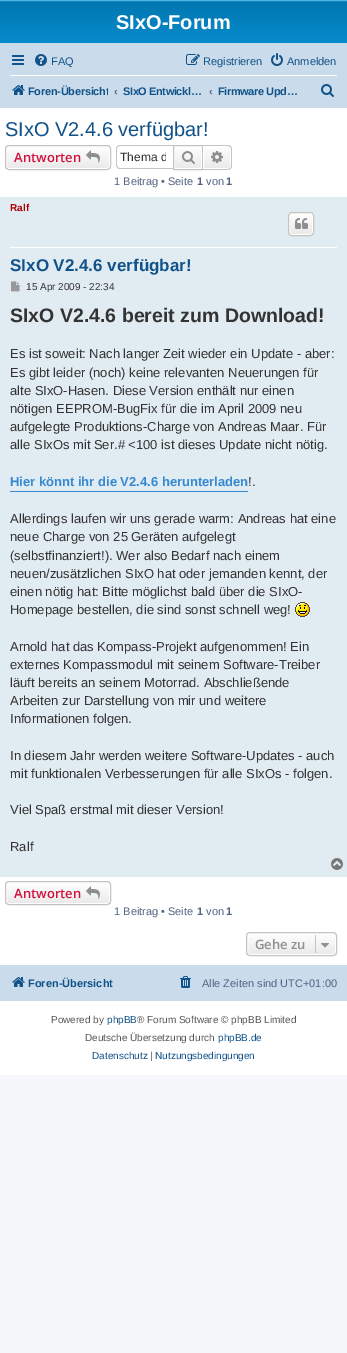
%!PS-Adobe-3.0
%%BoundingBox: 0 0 347 1353
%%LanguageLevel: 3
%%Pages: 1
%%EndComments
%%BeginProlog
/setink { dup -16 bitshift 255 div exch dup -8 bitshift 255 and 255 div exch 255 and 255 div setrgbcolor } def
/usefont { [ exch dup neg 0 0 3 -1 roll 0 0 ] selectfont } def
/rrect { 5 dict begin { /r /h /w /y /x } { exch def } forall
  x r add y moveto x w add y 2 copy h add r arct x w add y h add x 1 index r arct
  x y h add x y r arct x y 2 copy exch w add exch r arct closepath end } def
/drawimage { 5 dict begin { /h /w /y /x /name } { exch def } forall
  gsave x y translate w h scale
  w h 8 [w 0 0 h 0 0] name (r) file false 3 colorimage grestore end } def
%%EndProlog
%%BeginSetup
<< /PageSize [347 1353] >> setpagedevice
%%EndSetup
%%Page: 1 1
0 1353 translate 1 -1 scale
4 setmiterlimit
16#F5F7FA setink
0 0 347 1353 rectfill
16#FFFFFF setink
0 108 347 967 rectfill
gsave 0 0 moveto 347 0 lineto 347 43 lineto 0 43 lineto closepath clip newpath
<< /ShadingType 2 /ColorSpace /DeviceRGB /Coords [174 0 174 92] /Extend [true true] /Function << /FunctionType 3 /Domain [0 1] /Functions [<< /FunctionType 2 /Domain [0 1] /C0 [0.416 0.808 1] /C1 [0 0.463 0.694] /N 1 >> << /FunctionType 2 /Domain [0 1] /C0 [0 0.463 0.694] /C1 [0.071 0.639 0.922] /N 1 >>] /Bounds [0.02] /Encode [0 1 0 1] >> >> shfill grestore
/LiberationSans-Bold 20 usefont
116 29 moveto (SIxO-Forum) show
16#CADCEB setink
0 43 347 65 rectfill
(img1.raw) 12 55 12 10 drawimage
(img2.raw) 35 54 12 12 drawimage
/LiberationSans-Regular 11 usefont
16#105289 setink
51 65 moveto (FAQ) show
(img3.raw) 186 54 14 11 drawimage
203 65 moveto (Registrieren) show
(img4.raw) 271 53 12 13 drawimage
287 65 moveto (Anmelden) show
16#FFFFFF setink
10 75 327 1 rectfill
(img5.raw) 12 85 13 10 drawimage
gsave
10 79 98 24 rectclip
/LiberationSans-Bold 11 usefont
16#105289 setink
28 95 moveto -0.25 0 (Foren-Übersicht) ashow
grestore
/LiberationSans-Bold 11 usefont
16#536482 setink
114 95 moveto (‹) show
16#105289 setink
123 95 moveto -0.4 0 (SIxO Entwickl…) ashow
16#536482 setink
209 95 moveto (‹) show
16#105289 setink
218 95 moveto -0.4 0 (Firmware Upd…) ashow
(img6.raw) 321 84 13 13 drawimage
/LiberationSans-Regular 20 usefont
5 136 moveto (SIxO V2.4.6 verfügbar!) show
gsave
5 145 106 25 4 rrect clip newpath
gsave 5 146 moveto 111 146 lineto 111 169 lineto 5 169 lineto closepath clip newpath
<< /ShadingType 2 /ColorSpace /DeviceRGB /Coords [58 146 58 169] /Extend [true true] /Function << /FunctionType 2 /Domain [0 1] /C0 [1 1 1] /C1 [0.914 0.914 0.914] /N 1 >> >> shfill grestore
grestore
16#FFFFFF setink
6.5 146.5 103 22 2.5 rrect stroke
16#C7C3BF setink
5.5 145.5 105 24 3.5 rrect stroke
/OpenSans-SemiBold 13 usefont
16#D31141 setink
14 162 moveto (Antworten) show
(img7.raw) 86 150 14 13 drawimage
16#C7C3BF setink
120 145 moveto 173 145 lineto 173 169 lineto 120 169 lineto 118 169 116 167 116 165 curveto 116 149 lineto 116 147 118 145 120 145 curveto closepath 120 146 moveto 173 146 lineto 173 168 lineto 120 168 lineto 118 168 117 167 117 165 curveto 117 149 lineto 117 147 118 146 120 146 curveto closepath eofill
gsave
120 150 46 14 rectclip
/LiberationSans-Regular 12 usefont
16#333333 setink
120 161 moveto (Thema d) show
grestore
gsave 175 149 moveto 201 149 lineto 201 168 lineto 175 168 lineto closepath clip newpath
<< /ShadingType 2 /ColorSpace /DeviceRGB /Coords [188 146 188 169] /Extend [true true] /Function << /FunctionType 2 /Domain [0 1] /C0 [1 1 1] /C1 [0.914 0.914 0.914] /N 1 >> >> shfill grestore
173.5 145.5 29 24 rectstroke
(img8.raw) 182 151 13 13 drawimage
gsave 203.5 146.5 moveto 228 146.5 lineto 229.5 146.5 230.5 147.5 230.5 149 curveto 230.5 166 lineto 230.5 167.5 229.5 168.5 228 168.5 curveto 203.5 168.5 lineto closepath clip newpath
<< /ShadingType 2 /ColorSpace /DeviceRGB /Coords [217 146 217 169] /Extend [true true] /Function << /FunctionType 2 /Domain [0 1] /C0 [1 1 1] /C1 [0.914 0.914 0.914] /N 1 >> >> shfill grestore
16#FFFFFF setink
203.5 146.5 moveto 228 146.5 lineto 229.5 146.5 230.5 147.5 230.5 149 curveto 230.5 166 lineto 230.5 167.5 229.5 168.5 228 168.5 curveto 203.5 168.5 lineto closepath stroke
16#C7C3BF setink
203 145 moveto 228 145 lineto 230 145 232 147 232 149 curveto 232 166 lineto 232 168 230 170 228 170 curveto 203 170 lineto closepath 203 146 moveto 228 146 lineto 229.5 146 231 147.5 231 149 curveto 231 166 lineto 231 167.5 229.5 169 228 169 curveto 203 169 lineto closepath eofill
(img9.raw) 211 151 12 12 drawimage
/LiberationSans-Regular 11 usefont
16#536482 setink
114 185 moveto (1 Beitrag • Seite) show
/LiberationSans-Bold 11 usefont
197 185 moveto (1) show
/LiberationSans-Regular 11 usefont
206 185 moveto (von) show
/LiberationSans-Bold 11 usefont
226 185 moveto (1) show
16#E1EBF2 setink
0 197 347 680 rectfill
16#FFFFFF setink
10 247 327 1 rectfill
/LiberationSans-Bold 10 usefont
16#AA0000 setink
10 211 moveto (Ralf) show
gsave
288 212 26 24 4 rrect clip newpath
gsave 288 213 moveto 314 213 lineto 314 235 lineto 288 235 lineto closepath clip newpath
<< /ShadingType 2 /ColorSpace /DeviceRGB /Coords [301 213 301 235] /Extend [true true] /Function << /FunctionType 2 /Domain [0 1] /C0 [1 1 1] /C1 [0.914 0.914 0.914] /N 1 >> >> shfill grestore
grestore
16#FFFFFF setink
289.5 213.5 23 21 2.5 rrect stroke
16#C7C3BF setink
288.5 212.5 25 23 3.5 rrect stroke
(img10.raw) 295 218 13 11 drawimage
/LiberationSans-Bold 17 usefont
16#105289 setink
10 271 moveto (SIxO V2.4.6 verfügbar!) show
(img11.raw) 11 281 9 11 drawimage
/LiberationSans-Regular 10 usefont
16#333333 setink
26 290 moveto (15 Apr 2009 - 22:34) show
/LiberationSans-Bold 19.5 usefont
10 322 moveto (SIxO V2.4.6 bereit zum Download!) show
/LiberationSans-Regular 13 usefont
[
    [(Es ist soweit: Nach langer Zeit wieder ein Update - aber:) 10 358]
    [(Es gibt leider \(noch\) keine relevanten Neuerungen für) 10 377]
    [(alte SIxO-Hasen. Diese Version enthält nur einen) 10 395]
    [(nötigen EEPROM-BugFix für die im April 2009 neu) 10 413]
    [(aufgelegte Produktions-Charge von Andreas Maar. Für) 10 431]
    [(alle SIxOs mit Ser.# <100 ist dieses Update nicht nötig.) 10 449]
] { aload pop moveto show } forall
16#368AD2 setink
10 491 238 1 rectfill
/LiberationSans-Bold 13 usefont
10 486 moveto (Hier könnt ihr die V2.4.6 herunterladen) show
/LiberationSans-Regular 13 usefont
16#333333 setink
[
    [(!.) 248 486]
    [(Allerdings laufen wir uns gerade warm: Andreas hat eine) 10 523]
    [(neue Charge von 25 Geräten aufgelegt) 10 541]
    [(\(selbstfinanziert!\). Wer also Bedarf nach einem) 10 560]
    [(neuen/zusätzlichen SIxO hat oder jemanden kennt, der) 10 578]
    [(einen nötig hat: Bitte möglichst bald über die SIxO-) 10 596]
    [(Homepage bestellen, die sind sonst schnell weg!) 10 614]
] { aload pop moveto show } forall
(img12.raw) 295 602 15 15 drawimage
[
    [(Arnold hat das Kompass-Projekt aufgenommen! Ein) 10 651]
    [(externes Kompassmodul mit seinem Software-Treiber) 10 669]
    [(läuft bereits an seinem Motorrad. Abschließende) 10 687]
    [(Arbeiten zur Darstellung von mir und weitere) 10 705]
    [(Informationen folgen.) 10 723]
    [(In diesem Jahr werden weitere Software-Updates - auch) 10 760]
    [(mit funktionalen Verbesserungen für alle SIxOs - folgen.) 10 778]
    [(Viel Spaß erstmal mit dieser Version!) 10 814]
    [(Ralf) 10 851]
] { aload pop moveto show } forall
(img13.raw) 331 858 12 12 drawimage
gsave
5 881 106 24 4 rrect clip newpath
gsave 5 882 moveto 111 882 lineto 111 904 lineto 5 904 lineto closepath clip newpath
<< /ShadingType 2 /ColorSpace /DeviceRGB /Coords [58 882 58 904] /Extend [true true] /Function << /FunctionType 2 /Domain [0 1] /C0 [1 1 1] /C1 [0.914 0.914 0.914] /N 1 >> >> shfill grestore
grestore
16#FFFFFF setink
6.5 882.5 103 21 2.5 rrect stroke
16#C7C3BF setink
5.5 881.5 105 23 3.5 rrect stroke
/OpenSans-SemiBold 13 usefont
16#D31141 setink
14 898 moveto (Antworten) show
(img7.raw) 86 886 14 13 drawimage
/LiberationSans-Regular 11 usefont
16#536482 setink
114 915 moveto (1 Beitrag • Seite) show
/LiberationSans-Bold 11 usefont
197 915 moveto (1) show
/LiberationSans-Regular 11 usefont
206 915 moveto (von) show
/LiberationSans-Bold 11 usefont
226 915 moveto (1) show
gsave
246 932 91 24 4 rrect clip newpath
gsave 246 933 moveto 337 933 lineto 337 955 lineto 246 955 lineto closepath clip newpath
<< /ShadingType 2 /ColorSpace /DeviceRGB /Coords [292 933 292 955] /Extend [true true] /Function << /FunctionType 2 /Domain [0 1] /C0 [1 1 1] /C1 [0.914 0.914 0.914] /N 1 >> >> shfill grestore
grestore
16#FFFFFF setink
247.5 933.5 88 21 2.5 rrect stroke
16#C7C3BF setink
246.5 932.5 90 23 3.5 rrect stroke
/OpenSans-SemiBold 13 usefont
16#8F8F8F setink
255 949 moveto (Gehe zu) show
16#C7C3BF setink
315 935 1 18 rectfill
(img14.raw) 321 943 8 5 drawimage
16#CADCEB setink
0 965 347 36 rectfill
(img5.raw) 12 977 13 10 drawimage
/LiberationSans-Bold 11 usefont
16#105289 setink
28 987 moveto (Foren-Übersicht) show
(img15.raw) 180 976 11 12 drawimage
/LiberationSans-Regular 11 usefont
16#536482 setink
202 987 moveto (Alle Zeiten sind UTC+01:00) show
/LiberationSans-Regular 10 usefont
16#555555 setink
51 1023 moveto (Powered by) show
16#105289 setink
107 1023 moveto (phpBB) show
16#555555 setink
137 1023 moveto (® Forum Software © phpBB Limited) show
85 1041 moveto (Deutsche Übersetzung durch) show
16#105289 setink
218 1041 moveto (phpBB.de) show
92 1059 moveto (Datenschutz) show
16#555555 setink
150 1059 moveto (|) show
16#105289 setink
155 1059 moveto (Nutzungsbedingungen) show
showpage
%%EOF
